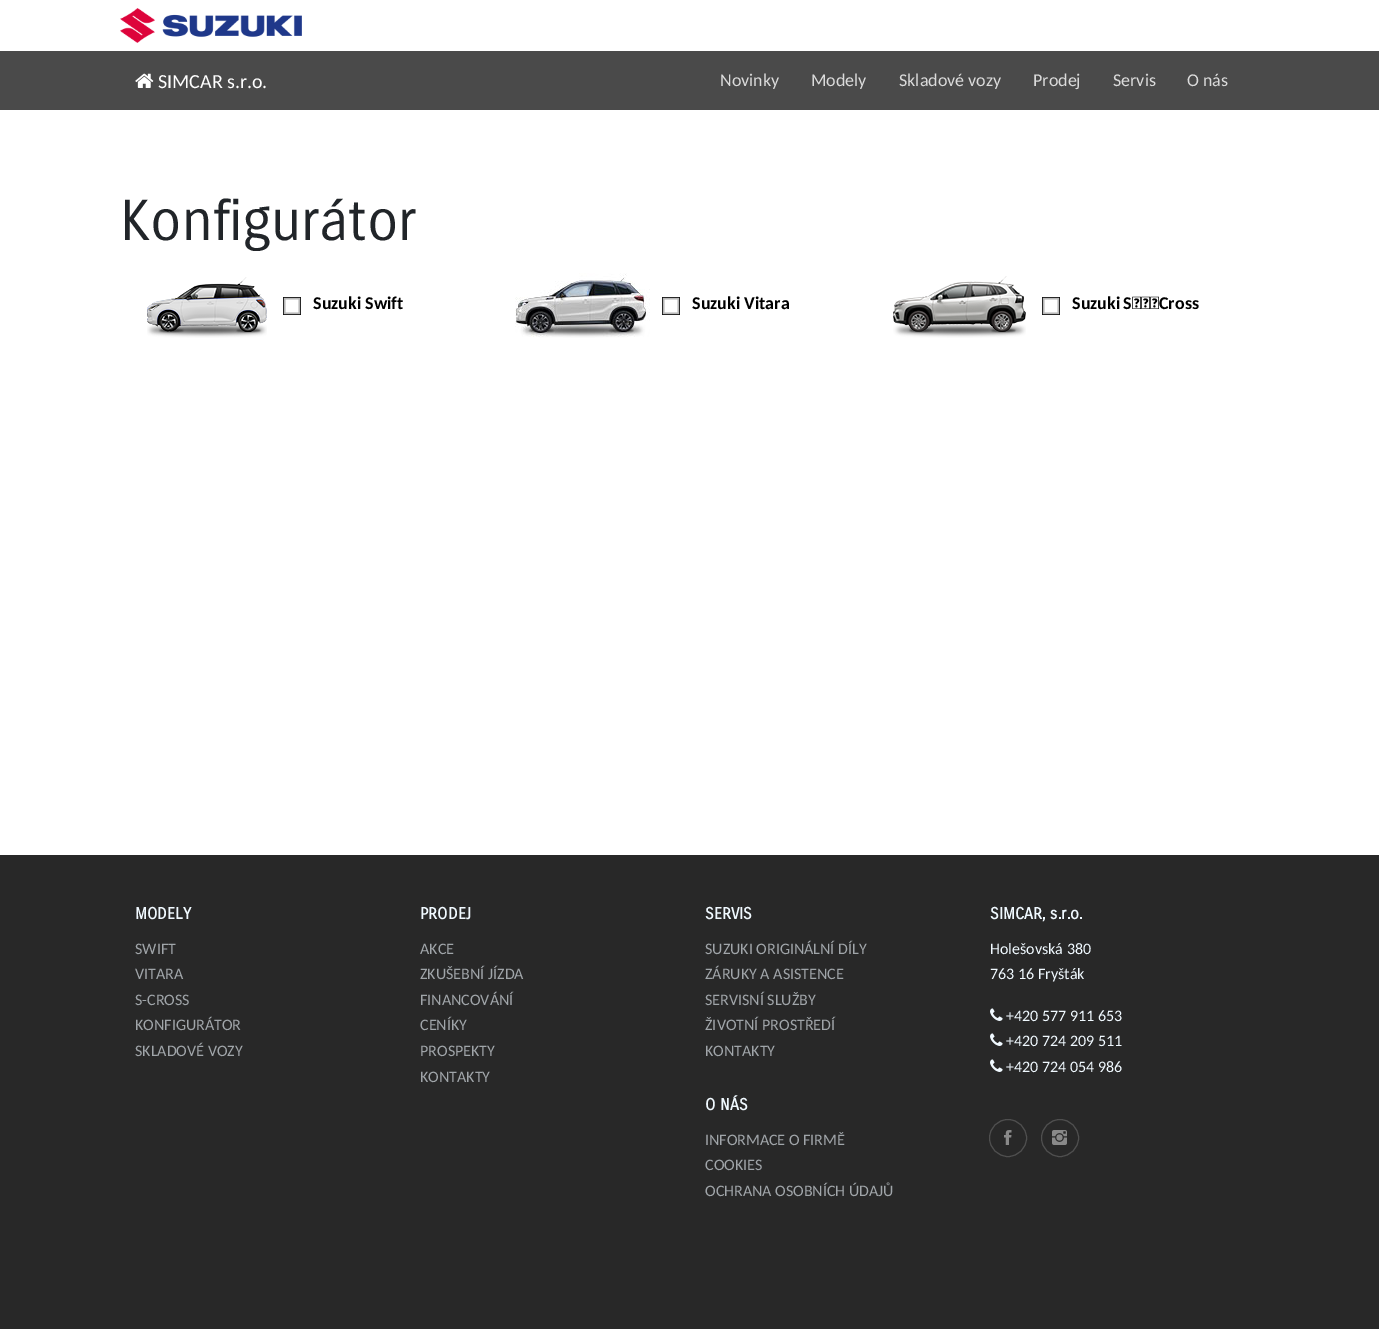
%!PS-Adobe-3.0
%%BoundingBox: 0 0 1379 1329
%%LanguageLevel: 3
%%Pages: 1
%%EndComments
%%BeginProlog
/setink { dup -16 bitshift 255 div exch dup -8 bitshift 255 and 255 div exch 255 and 255 div setrgbcolor } def
/usefont { [ exch dup neg 0 0 3 -1 roll 0 0 ] selectfont } def
/disc { newpath 0 360 arc closepath } def
/drawimage { 5 dict begin { /h /w /y /x /name } { exch def } forall
  gsave x y translate w h scale
  w h 8 [w 0 0 h 0 0] name (r) file false 3 colorimage grestore end } def
%%EndProlog
%%BeginSetup
<< /PageSize [1379 1329] >> setpagedevice
%%EndSetup
%%Page: 1 1
0 1329 translate 1 -1 scale
4 setmiterlimit
16#282828 setink
0 0 1379 1329 rectfill
16#FFFFFF setink
0 0 1379 51 rectfill
(img1.raw) 120 8 182 35 drawimage
16#4A4A4A setink
0 51 1379 59 rectfill
(img2.raw) 135 73 19 15 drawimage
/Carlito-Regular 20 usefont
16#FFFFFF setink
158 88 moveto (SIMCAR s.r.o.) show
/Carlito-Regular 18 usefont
16#DBDBDB setink
[
    [(Novinky) 720 86]
    [(Modely) 811 86]
    [(Skladové vozy) 899 86]
    [(Prodej) 1033 86]
    [(Servis) 1113 86]
    [(O nás) 1187 86]
] { aload pop moveto show } forall
16#FFFFFF setink
0 110 1379 745 rectfill
/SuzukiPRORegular-Regular 56 usefont
16#212529 setink
120 240 moveto (Konfigurátor) show
(img3.raw) 147 277 120 61 drawimage
(img4.raw) 283 297 18 18 drawimage
/Carlito-Bold 18 usefont
16#000000 setink
313 309 moveto (Suzuki Swift) show
(img5.raw) 515 273 135 65 drawimage
(img4.raw) 662 297 18 18 drawimage
692 309 moveto (Suzuki Vitara) show
(img6.raw) 893 276 133 62 drawimage
(img4.raw) 1042 297 18 18 drawimage
1072 309 moveto -1 0 32 (Suzuki S‑Cross) widthshow
/SuzukiPRORegular-Bold 16 usefont
16#F0F9FF setink
135 919 moveto (MODELY) show
/Carlito-Regular 16 usefont
16#A0A5A9 setink
[
    [(SWIFT) 135 954]
    [(VITARA) 135 979]
    [(S-CROSS) 135 1005]
    [(KONFIGURÁTOR) 135 1030]
    [(SKLADOVÉ VOZY) 135 1056]
] { aload pop moveto show } forall
/SuzukiPRORegular-Bold 16 usefont
16#F0F9FF setink
420 919 moveto (PRODEJ) show
/Carlito-Regular 16 usefont
16#A0A5A9 setink
[
    [(AKCE) 420 954]
    [(ZKUŠEBNÍ JÍZDA) 420 979]
    [(FINANCOVÁNÍ) 420 1005]
    [(CENÍKY) 420 1030]
    [(PROSPEKTY) 420 1056]
    [(KONTAKTY) 420 1082]
] { aload pop moveto show } forall
/SuzukiPRORegular-Bold 16 usefont
16#F0F9FF setink
705 919 moveto (SERVIS) show
/Carlito-Regular 16 usefont
16#A0A5A9 setink
[
    [(SUZUKI ORIGINÁLNÍ DÍLY) 705 954]
    [(ZÁRUKY A ASISTENCE) 705 979]
    [(SERVISNÍ SLUŽBY) 705 1005]
    [(ŽIVOTNÍ PROSTŘEDÍ) 705 1030]
    [(KONTAKTY) 705 1056]
] { aload pop moveto show } forall
/SuzukiPRORegular-Bold 16 usefont
16#F0F9FF setink
705 1110 moveto (O NÁS) show
/Carlito-Regular 16 usefont
16#A0A5A9 setink
[
    [(INFORMACE O FIRMĚ) 705 1145]
    [(COOKIES) 705 1170]
    [(OCHRANA OSOBNÍCH ÚDAJŮ) 705 1196]
] { aload pop moveto show } forall
/SuzukiPRORegular-Bold 16 usefont
16#F0F9FF setink
990 919 moveto (SIMCAR, s.r.o.) show
/Carlito-Regular 16 usefont
990 954 moveto (Holešovská 380) show
990 979 moveto (763 16 Fryšták) show
(img7.raw) 990 1008 13 13 drawimage
1006 1021 moveto (+420 577 911 653) show
(img7.raw) 990 1033 13 13 drawimage
1006 1046 moveto (+420 724 209 511) show
(img7.raw) 990 1059 13 13 drawimage
1006 1072 moveto (+420 724 054 986) show
16#4F4F4F setink
1008 1138 18.5 disc stroke
(img8.raw) 1004 1130 8 15 drawimage
1060 1138 18.5 disc stroke
(img9.raw) 1052 1130 15 15 drawimage
showpage
%%EOF
